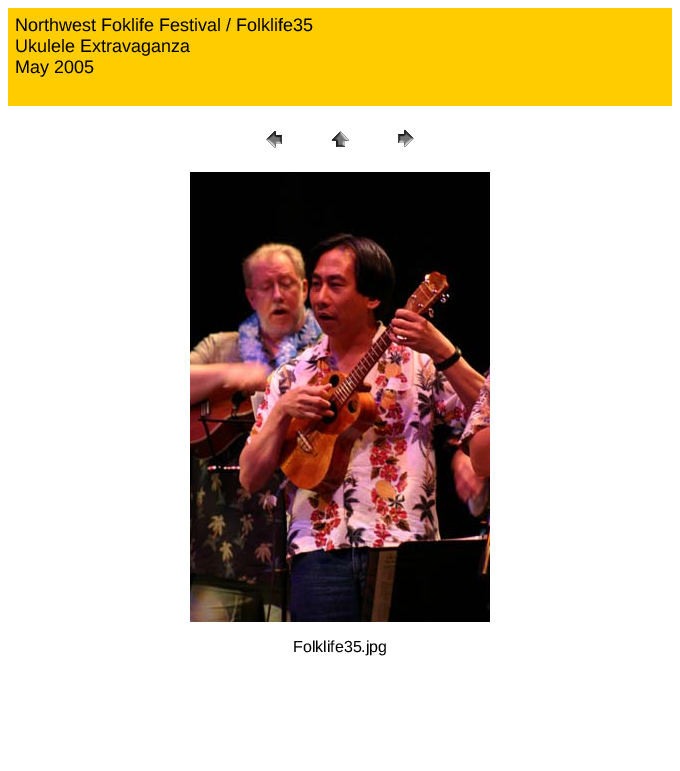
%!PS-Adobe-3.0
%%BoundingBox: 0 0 680 771
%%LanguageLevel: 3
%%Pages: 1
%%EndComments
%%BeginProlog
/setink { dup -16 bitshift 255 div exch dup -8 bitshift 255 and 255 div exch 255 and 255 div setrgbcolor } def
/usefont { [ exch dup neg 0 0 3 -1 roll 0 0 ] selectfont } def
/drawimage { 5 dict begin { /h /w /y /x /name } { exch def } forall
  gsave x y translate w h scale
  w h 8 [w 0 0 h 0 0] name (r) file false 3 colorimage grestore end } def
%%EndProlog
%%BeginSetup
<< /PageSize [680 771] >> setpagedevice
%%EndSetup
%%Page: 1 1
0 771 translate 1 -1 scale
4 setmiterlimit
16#FFFFFF setink
0 0 680 771 rectfill
16#FFCC00 setink
8 8 664 98 rectfill
/LiberationSans-Regular 18 usefont
16#000000 setink
[
    [(Northwest Foklife Festival / Folklife35) 15 31]
    [(Ukulele Extravaganza) 15 52]
    [(May 2005) 15 73]
] { aload pop moveto show } forall
(img1.raw) 266 131 16 17 drawimage
(img2.raw) 332 131 17 16 drawimage
(img3.raw) 398 130 16 17 drawimage
(img4.raw) 190 172 300 450 drawimage
/LiberationSans-Regular 16 usefont
293 652 moveto (Folklife35.jpg) show
showpage
%%EOF
